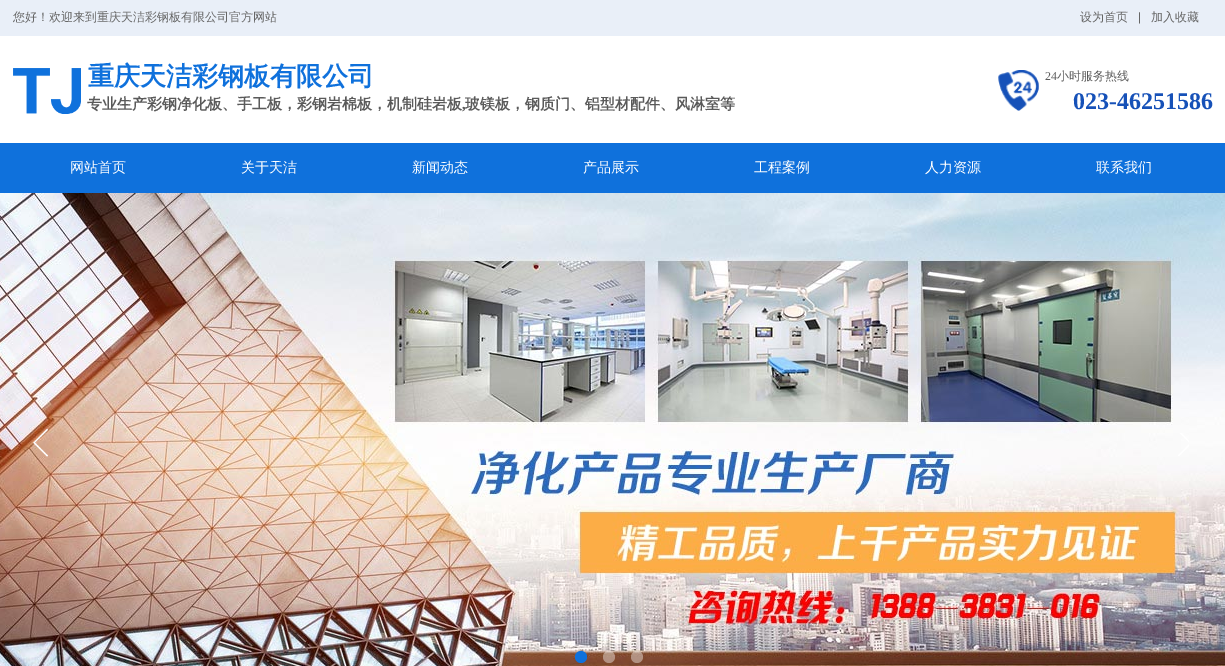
%!PS-Adobe-3.0
%%BoundingBox: 0 0 1225 666
%%LanguageLevel: 3
%%Pages: 1
%%EndComments
%%BeginProlog
/setink { dup -16 bitshift 255 div exch dup -8 bitshift 255 and 255 div exch 255 and 255 div setrgbcolor } def
/usefont { [ exch dup neg 0 0 3 -1 roll 0 0 ] selectfont } def
/setalpha { dup .setfillconstantalpha .setstrokeconstantalpha } def
/disc { newpath 0 360 arc closepath } def
/drawimage { 5 dict begin { /h /w /y /x /name } { exch def } forall
  gsave x y translate w h scale
  w h 8 [w 0 0 h 0 0] name (r) file false 3 colorimage grestore end } def
%%EndProlog
%%BeginSetup
<< /PageSize [1225 666] /PageUsesTransparency true >> setpagedevice
%%EndSetup
%%Page: 1 1
0 .pushpdf14devicefilter
0 666 translate 1 -1 scale
4 setmiterlimit
16#FFFFFF setink
0 0 1225 666 rectfill
16#E9EFF8 setink
0 0 1225 36 rectfill
/WenQuanYiZenHei-Medium 12 usefont
16#666666 setink
13 21 moveto (您好！欢迎来到重庆天洁彩钢板有限公司官方网站) show
1080 21 moveto (设为首页) show
/LiberationSans-Regular 12 usefont
1138 21 moveto (|) show
/WenQuanYiZenHei-Medium 12 usefont
1151 21 moveto (加入收藏) show
(img1.raw) 13 68 68 46 drawimage
/WenQuanYiZenHei-Bold 26 usefont
16#0F71DC setink
88 85 moveto (重庆天洁彩钢板有限公司) show
(img2.raw) 998 70 41 41 drawimage
/LiberationSerif-Regular 12 usefont
16#5A5A5A setink
1045 80 moveto (24) show
/WenQuanYiZenHei-Medium 12 usefont
1057 80 moveto (小时服务热线) show
/WenQuanYiZenHei-Bold 15 usefont
87 109 moveto (专业生产彩钢净化板、手工板，彩钢岩棉板，机制硅岩板) show
/LiberationSerif-Bold 15 usefont
462 109 moveto (,) show
/WenQuanYiZenHei-Bold 15 usefont
465 109 moveto (玻镁板，钢质门、铝型材配件、风淋室等) show
/LiberationSerif-Bold 24 usefont
16#1651B8 setink
1073 109 moveto (023-46251586) show
16#0F71DC setink
0 143 1225 50 rectfill
/WenQuanYiZenHei-Medium 14 usefont
16#FFFFFF setink
[
    [(网站首页) 70 172]
    [(关于天洁) 241 172]
    [(新闻动态) 412 172]
    [(产品展示) 583 172]
    [(工程案例) 754 172]
    [(人力资源) 925 172]
    [(联系我们) 1096 172]
] { aload pop moveto show } forall
(img3.raw) 0 193 1225 473 drawimage
(img4.raw) 33 428 16 29 drawimage
(img5.raw) 1178 433 11 23 drawimage
16#0F71DC setink
581 657 6 disc fill
0.4 setalpha
16#FFFFFF setink
609 657 6 disc fill
637 657 6 disc fill
.poppdf14devicefilter showpage
%%EOF
